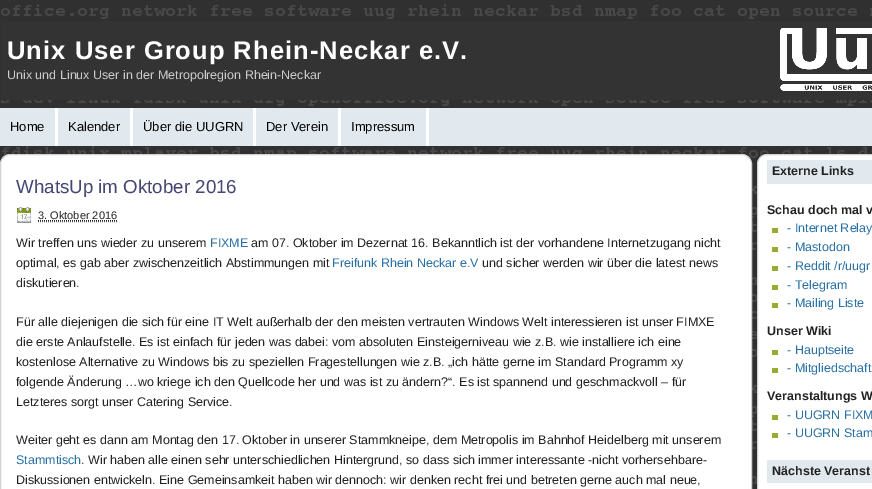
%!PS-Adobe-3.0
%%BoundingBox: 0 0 872 489
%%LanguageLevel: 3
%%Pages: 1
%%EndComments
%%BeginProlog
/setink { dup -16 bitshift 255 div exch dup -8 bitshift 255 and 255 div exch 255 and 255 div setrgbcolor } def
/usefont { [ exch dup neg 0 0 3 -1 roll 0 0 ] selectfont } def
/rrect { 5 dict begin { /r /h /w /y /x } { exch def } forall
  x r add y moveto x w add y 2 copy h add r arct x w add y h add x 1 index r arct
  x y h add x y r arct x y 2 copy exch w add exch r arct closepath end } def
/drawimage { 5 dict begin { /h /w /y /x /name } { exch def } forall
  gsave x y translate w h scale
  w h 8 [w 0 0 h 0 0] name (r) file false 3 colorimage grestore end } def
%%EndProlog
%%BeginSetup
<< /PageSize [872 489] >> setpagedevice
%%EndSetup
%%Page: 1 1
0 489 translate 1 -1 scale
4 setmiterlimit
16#FFFFFF setink
0 0 872 489 rectfill
(img1.raw) 0 0 872 489 drawimage
(img2.raw) 1 21 871 79 drawimage
/LiberationSans-Bold 25.6 usefont
7 59 moveto 1 0 (Unix User Group Rhein-Neckar e.V.) ashow
/LiberationSans-Regular 12.5 usefont
16#CCCCCC setink
7 79 moveto (Unix und Linux User in der Metropolregion Rhein-Neckar) show
16#E1E9EE setink
0 108 872 38 rectfill
16#FFFFFF setink
55 108 3 38 rectfill
/LiberationSans-Regular 13 usefont
16#000000 setink
10 131 moveto (Home) show
16#FFFFFF setink
130 108 3 38 rectfill
16#000000 setink
68 131 moveto (Kalender) show
16#FFFFFF setink
253 108 3 38 rectfill
16#000000 setink
143 131 moveto (Über die UUGRN) show
16#FFFFFF setink
338 108 3 38 rectfill
16#000000 setink
266 131 moveto (Der Verein) show
16#FFFFFF setink
426 108 3 38 rectfill
16#000000 setink
351 131 moveto (Impressum) show
16#FFFFFF setink
0.5 154.5 751 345 9.5 rrect gsave fill grestore
16#D3D3D3 setink
stroke
/LiberationSans-Regular 18.75 usefont
16#454673 setink
16 193 moveto (WhatsUp im Oktober 2016) show
(img3.raw) 17 207 14 16 drawimage
/LiberationSans-Regular 11 usefont
16#222222 setink
38 219 moveto (3. Oktober 2016) show
16#666666 setink
[1 1] 0 setdash
38 221.5 moveto 117 221.5 lineto stroke
16#222222 setink
38 220.5 moveto 117 220.5 lineto stroke
/LiberationSans-Regular 12.5 usefont
16 247 moveto (Wir treffen uns wieder zu unserem) show
16#2970A6 setink
210 247 moveto (FIXME) show
16#222222 setink
251 247 moveto (am 07. Oktober im Dezernat 16. Bekanntlich ist der vorhandene Internetzugang nicht) show
16 267 moveto (optimal, es gab aber zwischenzeitlich Abstimmungen mit) show
16#2970A6 setink
332 267 moveto (Freifunk Rhein Neckar e.V) show
16#222222 setink
[
    [(und sicher werden wir über die latest news) 482 267]
    [(diskutieren.) 16 287]
    [(Für alle diejenigen die sich für eine IT Welt außerhalb der den meisten vertrauten Windows Welt interessieren ist unser FIMXE) 16 326]
    [(die erste Anlaufstelle. Es ist einfach für jeden was dabei: vom absoluten Einsteigerniveau wie z.B. wie installiere ich eine) 16 346]
    [(kostenlose Alternative zu Windows bis zu speziellen Fragestellungen wie z.B. „ich hätte gerne im Standard Programm xy) 16 366]
    [(folgende Änderung …wo kriege ich den Quellcode her und was ist zu ändern?“. Es ist spannend und geschmackvoll – für) 16 386]
    [(Letzteres sorgt unser Catering Service.) 16 406]
    [(Weiter geht es dann am Montag den 17. Oktober in unserer Stammkneipe, dem Metropolis im Bahnhof Heidelberg mit unserem) 16 444]
] { aload pop moveto show } forall
16#2970A6 setink
16 464 moveto (Stammtisch) show
16#222222 setink
81 464 moveto (. Wir haben alle einen sehr unterschiedlichen Hintergrund, so dass sich immer interessante -nicht vorhersehbare-) show
16 484 moveto (Diskussionen entwickeln. Eine Gemeinsamkeit haben wir dennoch: wir denken recht frei und betreten gerne auch mal neue,) show
16#FFFFFF setink
757.5 154.5 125 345 9.5 rrect gsave fill grestore
16#D3D3D3 setink
[] 0 setdash
stroke
16#E1E9EE setink
767 160 105 24 rectfill
/LiberationSans-Bold 12.5 usefont
16#222222 setink
772 175 moveto (Externe Links) show
767 214 moveto (Schau doch mal v) show
16#99AA33 setink
772 228 6 5 rectfill
/LiberationSans-Regular 12.5 usefont
16#2970A6 setink
787 232 moveto (- Internet Relay) show
16#99AA33 setink
772 247 6 5 rectfill
16#2970A6 setink
787 251 moveto (- Mastodon) show
16#99AA33 setink
772 266 6 5 rectfill
16#2970A6 setink
787 270 moveto (- Reddit /r/uugr) show
16#99AA33 setink
772 285 6 5 rectfill
16#2970A6 setink
787 289 moveto (- Telegram) show
16#99AA33 setink
772 303 6 5 rectfill
16#2970A6 setink
787 307 moveto (- Mailing Liste) show
/LiberationSans-Bold 12.5 usefont
16#222222 setink
767 335 moveto (Unser Wiki) show
16#99AA33 setink
772 350 6 5 rectfill
/LiberationSans-Regular 12.5 usefont
16#2970A6 setink
787 354 moveto (- Hauptseite) show
16#99AA33 setink
772 368 6 5 rectfill
16#2970A6 setink
787 372 moveto (- Mitgliedschaft) show
/LiberationSans-Bold 12.5 usefont
16#222222 setink
767 400 moveto (Veranstaltungs W) show
16#99AA33 setink
772 415 6 5 rectfill
/LiberationSans-Regular 12.5 usefont
16#2970A6 setink
787 419 moveto (- UUGRN FIXM) show
16#99AA33 setink
772 433 6 5 rectfill
16#2970A6 setink
787 437 moveto (- UUGRN Stam) show
16#E1E9EE setink
767 460 105 23 rectfill
/LiberationSans-Bold 12.5 usefont
16#222222 setink
772 475 moveto (Nächste Veranst) show
showpage
%%EOF
